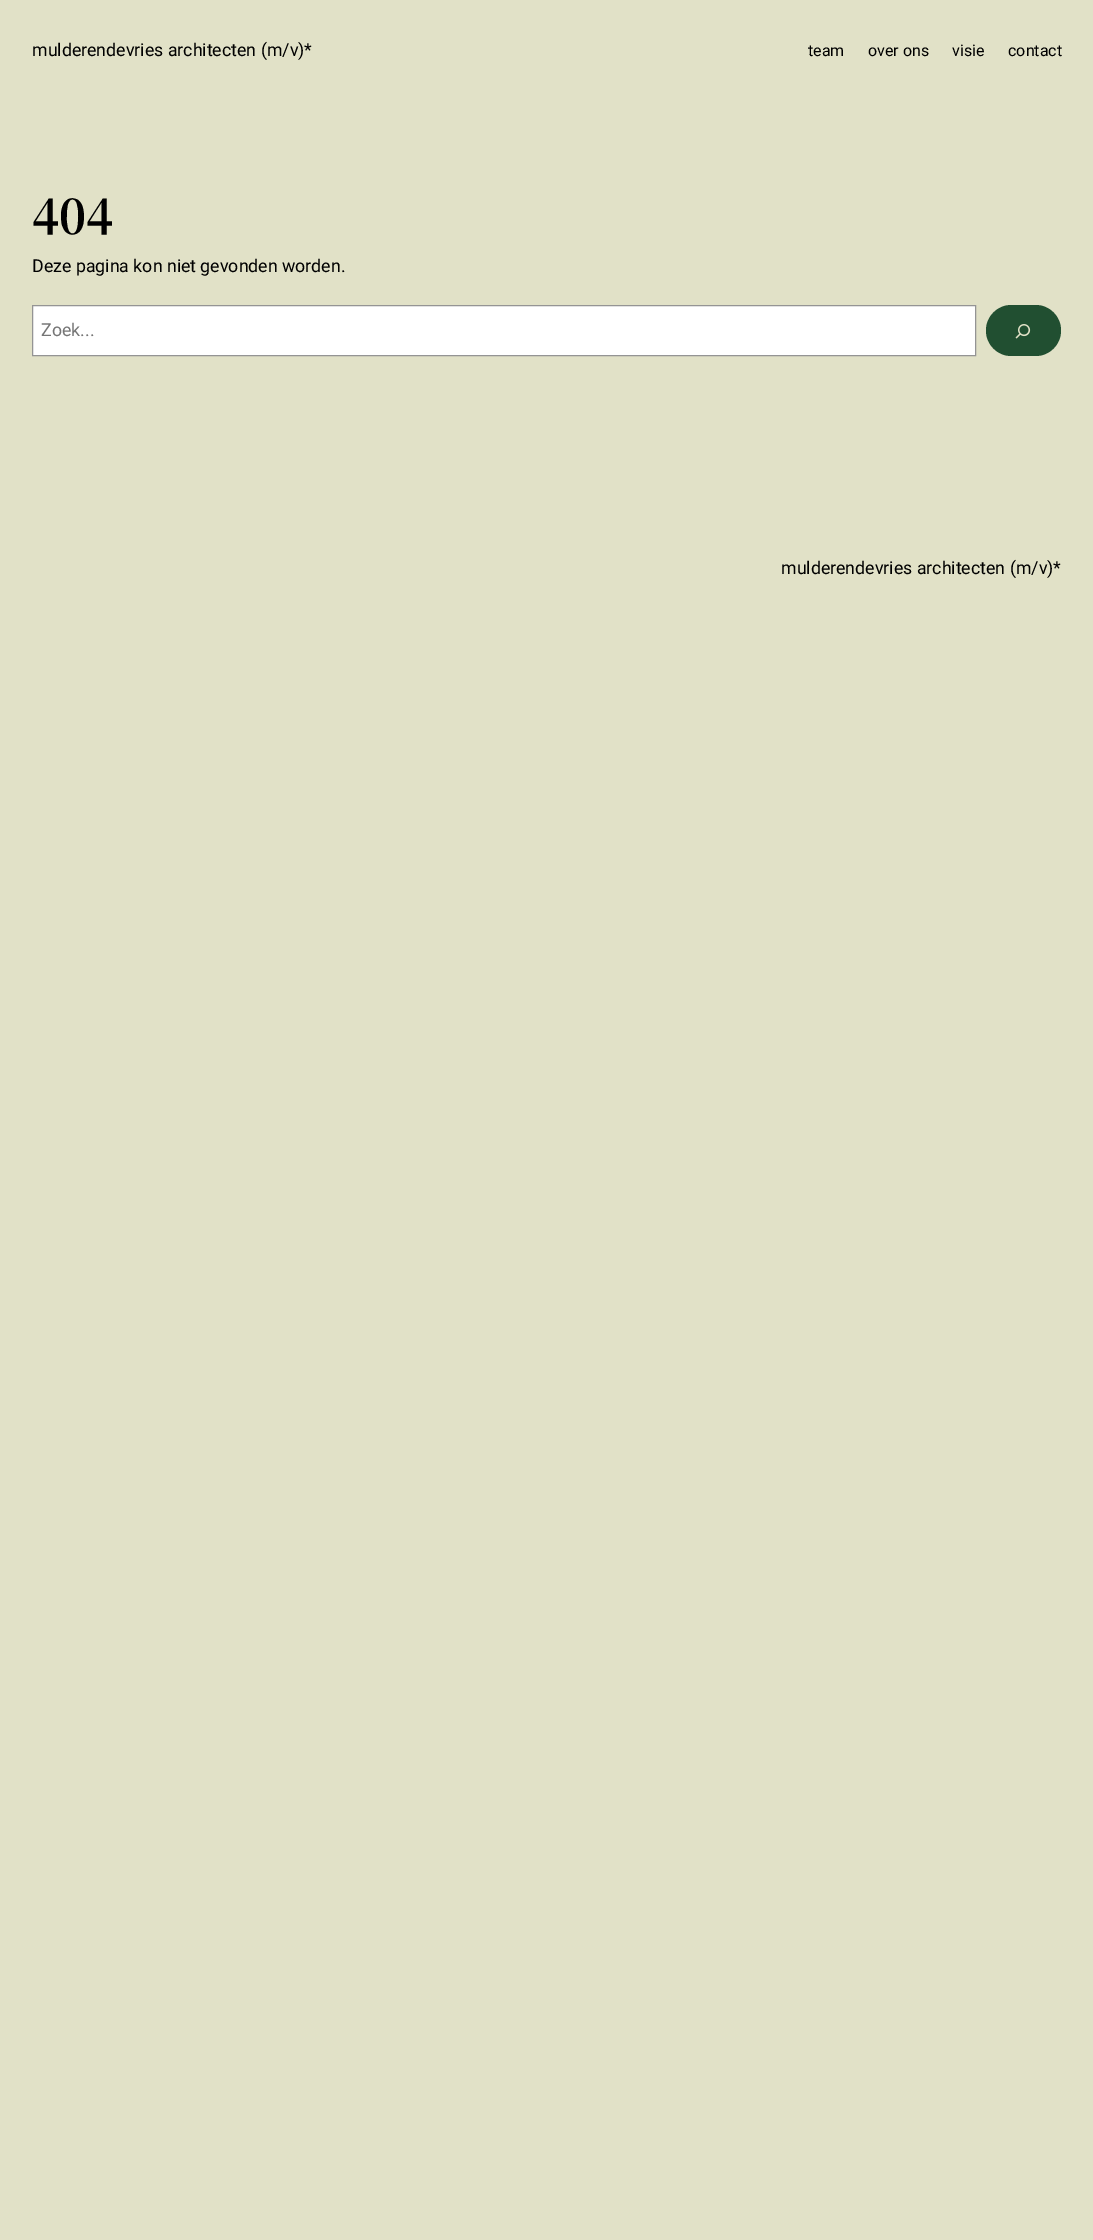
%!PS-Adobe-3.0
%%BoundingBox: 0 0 1093 2240
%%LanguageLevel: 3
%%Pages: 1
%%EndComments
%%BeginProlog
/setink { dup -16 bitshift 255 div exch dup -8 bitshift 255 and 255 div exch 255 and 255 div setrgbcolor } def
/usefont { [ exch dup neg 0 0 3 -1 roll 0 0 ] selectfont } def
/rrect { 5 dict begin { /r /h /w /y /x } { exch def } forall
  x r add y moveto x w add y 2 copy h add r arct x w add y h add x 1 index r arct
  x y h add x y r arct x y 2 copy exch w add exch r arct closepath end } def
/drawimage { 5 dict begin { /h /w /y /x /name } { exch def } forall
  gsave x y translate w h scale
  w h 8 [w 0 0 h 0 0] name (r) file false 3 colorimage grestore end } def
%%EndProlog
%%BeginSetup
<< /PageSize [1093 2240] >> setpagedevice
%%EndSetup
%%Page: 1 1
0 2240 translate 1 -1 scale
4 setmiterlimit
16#E1E1C7 setink
0 0 1093 2240 rectfill
/Roboto-Regular 17.75 usefont
16#000000 setink
32 56 moveto (mulderendevries architecten \(m/v\)*) show
/Roboto-Regular 16 usefont
[
    [(team) 808 56]
    [(over ons) 868 56]
    [(visie) 952 56]
    [(contact) 1008 56]
] { aload pop moveto show } forall
/SourceSerif4-SemiBold 55 usefont
32 234 moveto (404) show
/Roboto-Regular 17.75 usefont
32 272 moveto (Deze pagina kon niet gevonden worden.) show
16#FFFFFF setink
32.5 305.5 moveto 975.5 305.5 lineto 975.5 355.5 lineto 32.5 355.5 lineto closepath gsave fill grestore
16#949494 setink
stroke
16#757575 setink
41 336 moveto (Zoek...) show
16#214F31 setink
986 305 75 51 25.5 rrect fill
(img1.raw) 1015 324 16 15 drawimage
16#000000 setink
781 574 moveto (mulderendevries architecten \(m/v\)*) show
showpage
%%EOF
